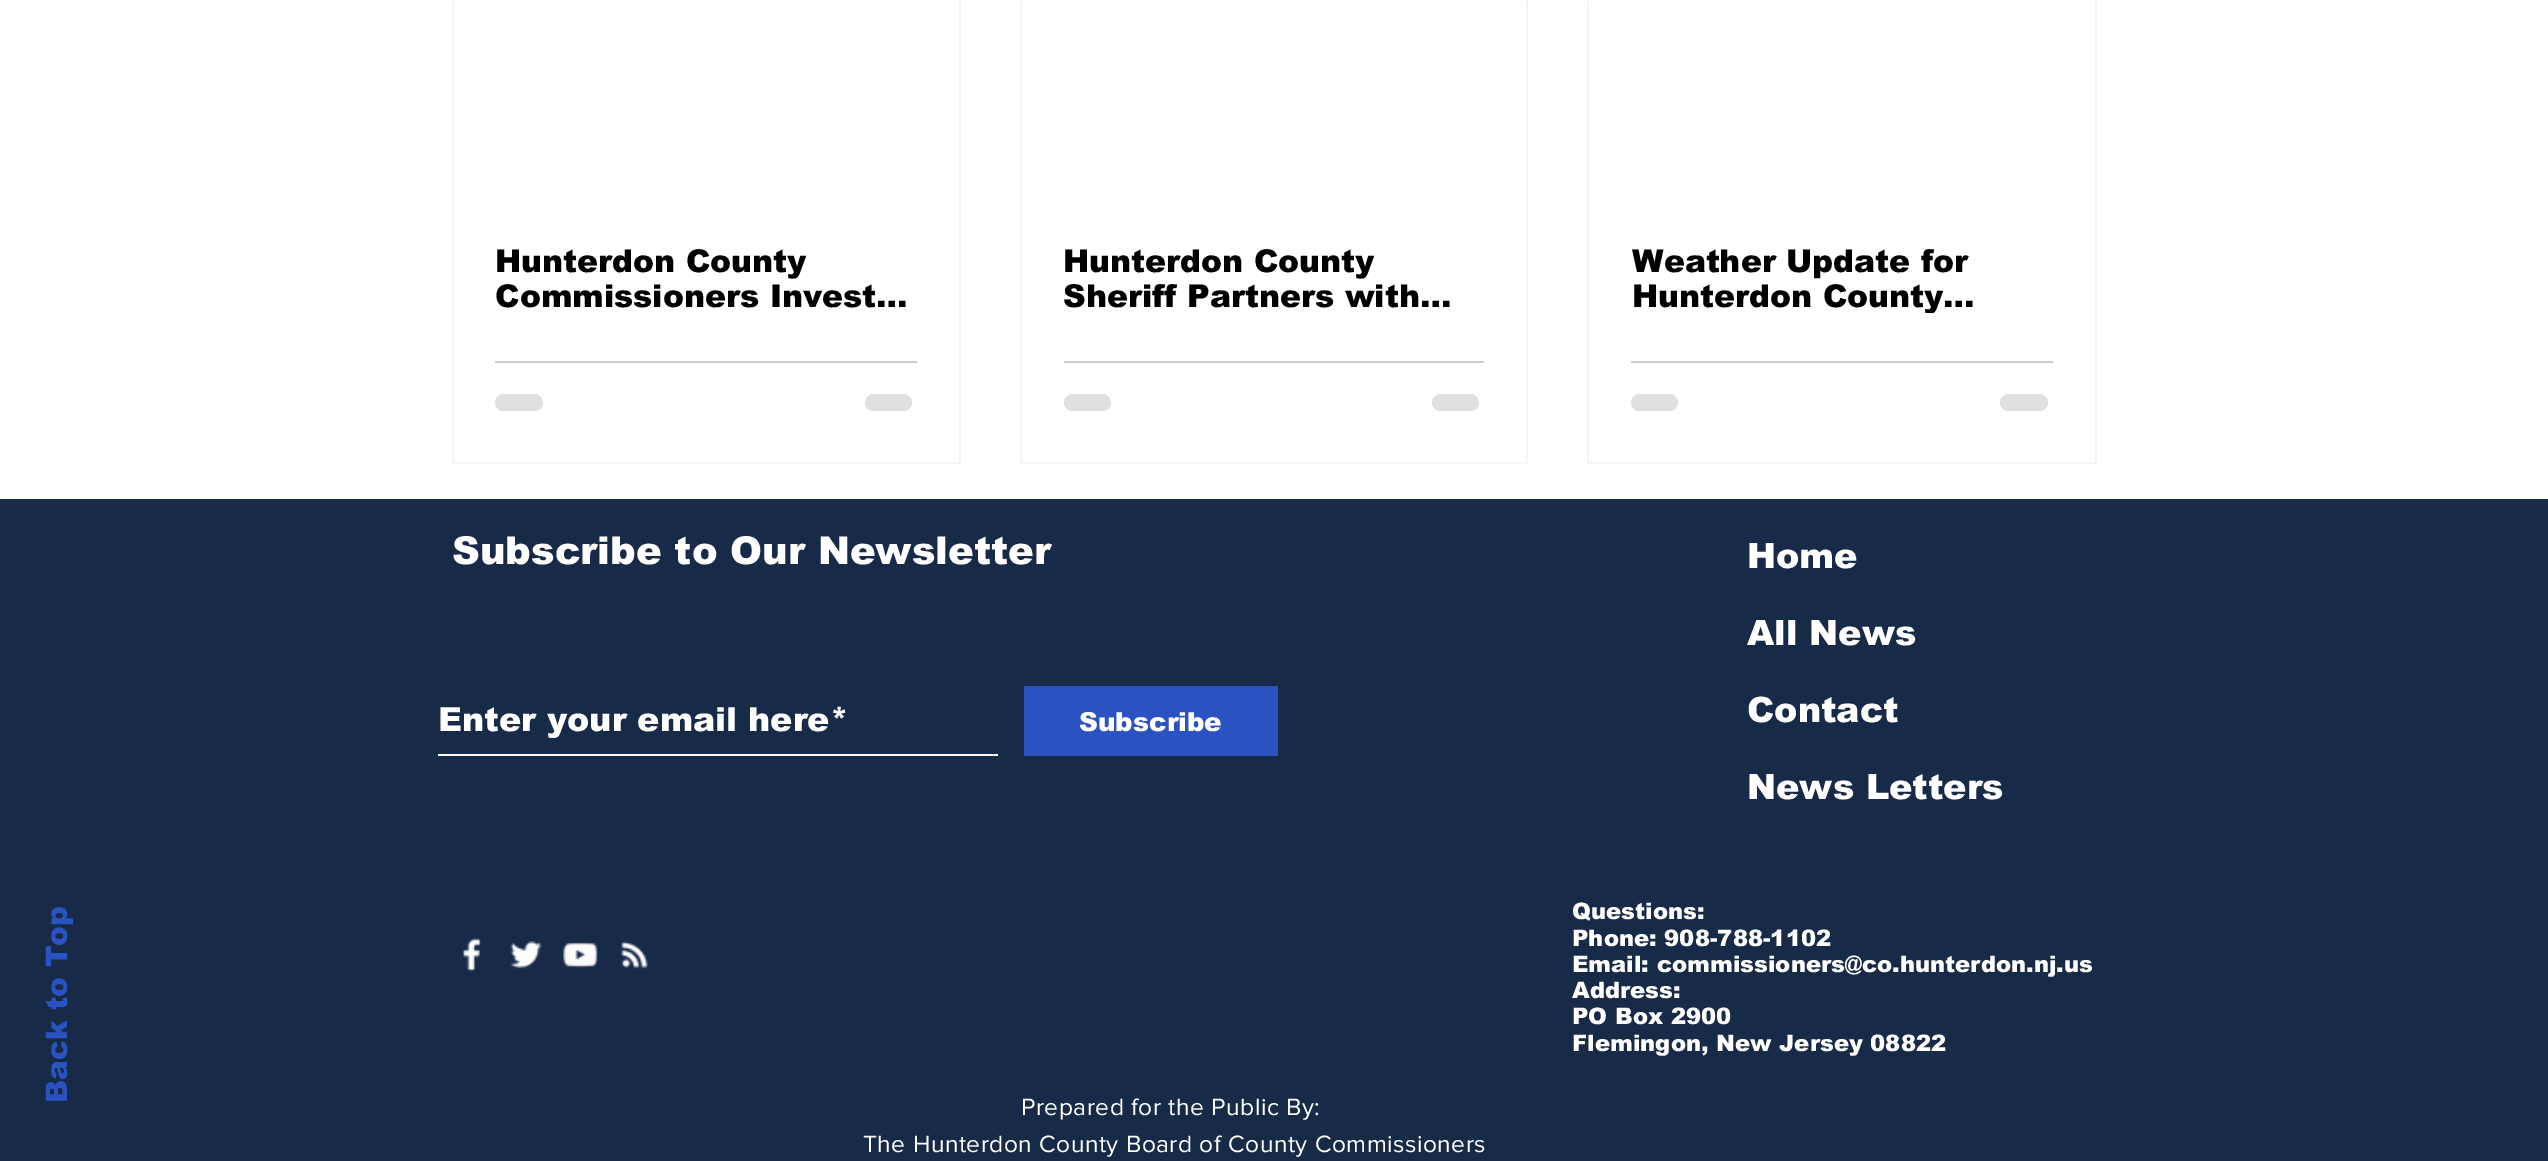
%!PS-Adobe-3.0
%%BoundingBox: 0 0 2548 1161
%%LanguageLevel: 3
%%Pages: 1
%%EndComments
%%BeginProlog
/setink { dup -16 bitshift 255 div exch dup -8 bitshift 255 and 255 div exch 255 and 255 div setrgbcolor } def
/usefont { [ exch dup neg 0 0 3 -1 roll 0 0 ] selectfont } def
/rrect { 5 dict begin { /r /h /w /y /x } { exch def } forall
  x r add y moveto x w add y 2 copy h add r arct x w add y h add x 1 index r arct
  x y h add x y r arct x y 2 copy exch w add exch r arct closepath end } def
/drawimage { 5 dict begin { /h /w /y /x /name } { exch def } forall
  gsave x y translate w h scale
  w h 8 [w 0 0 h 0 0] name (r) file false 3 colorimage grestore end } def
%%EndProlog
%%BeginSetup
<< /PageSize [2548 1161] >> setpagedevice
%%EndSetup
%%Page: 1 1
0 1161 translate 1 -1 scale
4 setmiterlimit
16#FFFFFF setink
0 0 2548 1161 rectfill
16#F5F5F5 setink
2 setlinewidth
453 -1 507 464 rectstroke
/arial-Black 31.5 usefont
16#000000 setink
495 272 moveto (Hunterdon County) show
495 307 moveto (Commissioners Invest…) show
16#CCCCCC setink
495 361 422 2 rectfill
16#E0E0E0 setink
495 394 48 17 8.5 rrect fill
865 394 47 17 8.5 rrect fill
16#F5F5F5 setink
1021 -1 506 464 rectstroke
16#000000 setink
1063 272 moveto (Hunterdon County) show
1063 307 moveto (Sheriff Partners with…) show
16#CCCCCC setink
1064 361 420 2 rectfill
16#E0E0E0 setink
1064 394 47 17 8.5 rrect fill
1432 394 47 17 8.5 rrect fill
16#F5F5F5 setink
1588 -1 508 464 rectstroke
16#000000 setink
1632 272 moveto (Weather Update for) show
gsave
1631 243 422 70 rectclip
1632 307 moveto (Hunterdon County…) show
grestore
16#CCCCCC setink
1631 361 422 2 rectfill
16#E0E0E0 setink
1631 394 47 17 8.5 rrect fill
2000 394 48 17 8.5 rrect fill
16#172A47 setink
0 499 2548 662 rectfill
/arial-Black 29.75 usefont
16#2A53C1 setink
gsave 67 1103 translate -90 rotate 0 0 moveto (Back to Top) show grestore
/arial-Black 38.5 usefont
16#FFFFFF setink
452 564 moveto (Subscribe to Our Newsletter) show
/arial-Black 35 usefont
[
    [(Home) 1747 568]
    [(All News) 1747 645]
    [(Contact) 1747 722]
    [(News Letters) 1747 799]
] { aload pop moveto show } forall
438 754 560 2 rectfill
/arial-Black 33.25 usefont
438 731 moveto (Enter your email here*) show
16#2A53C1 setink
1024 686 254 70 rectfill
/arial-Black 26.25 usefont
16#FFFFFF setink
1079 731 moveto (Subscribe) show
(img1.raw) 462 937 20 35 drawimage
(img2.raw) 510 941 32 28 drawimage
(img3.raw) 563 942 35 26 drawimage
(img4.raw) 621 941 27 28 drawimage
/arial-Black 22.75 usefont
[
    [(Questions:) 1572 919]
    [(Phone: 908-788-1102) 1572 946]
    [(Email: commissioners@co.hunterdon.nj.us) 1572 972]
    [(Address:) 1572 998]
    [(PO Box 2900) 1572 1024]
    [(Flemingon, New Jersey 08822) 1572 1051]
] { aload pop moveto show } forall
/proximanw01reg-Regular 24.5 usefont
1021 1115 moveto 0.5 0 (Prepared for the Public By:) ashow
863 1152 moveto 0.5 0 (The Hunterdon County Board of County Commissioners) ashow
showpage
%%EOF
